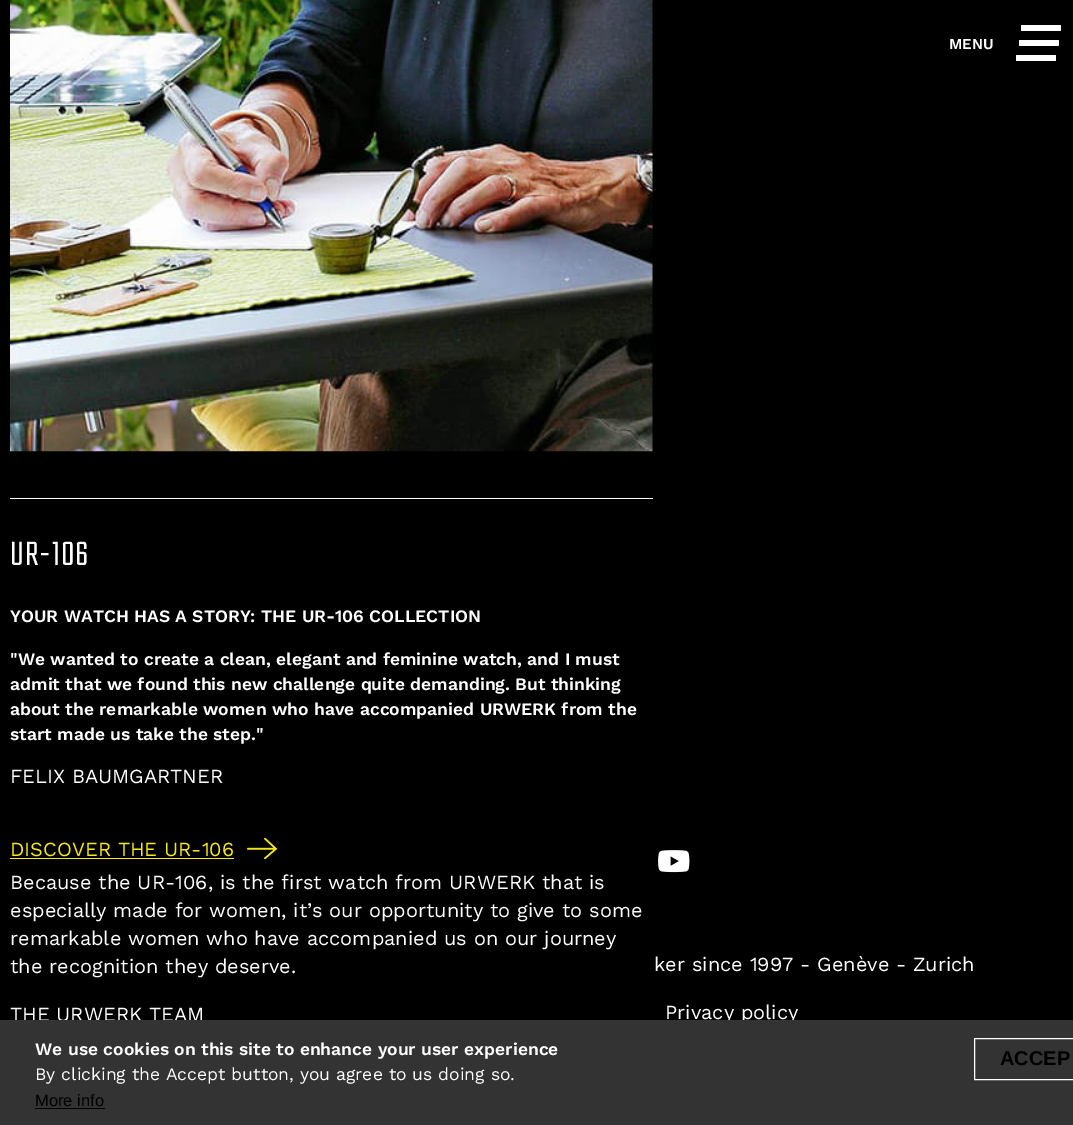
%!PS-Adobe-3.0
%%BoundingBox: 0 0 1073 1125
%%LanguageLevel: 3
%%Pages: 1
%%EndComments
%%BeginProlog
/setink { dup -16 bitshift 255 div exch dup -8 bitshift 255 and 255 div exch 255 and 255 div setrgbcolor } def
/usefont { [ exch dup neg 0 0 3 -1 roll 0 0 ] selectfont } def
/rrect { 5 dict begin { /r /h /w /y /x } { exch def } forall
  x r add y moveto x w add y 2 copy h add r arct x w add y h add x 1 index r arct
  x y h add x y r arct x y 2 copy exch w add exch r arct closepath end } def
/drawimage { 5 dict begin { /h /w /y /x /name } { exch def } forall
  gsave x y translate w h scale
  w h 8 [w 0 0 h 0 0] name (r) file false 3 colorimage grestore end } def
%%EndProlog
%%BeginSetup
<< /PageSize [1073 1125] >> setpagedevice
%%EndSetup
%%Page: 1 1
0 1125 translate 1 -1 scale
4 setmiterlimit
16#000000 setink
0 0 1073 1125 rectfill
/WorkSans-SemiBold 15 usefont
16#FFFFFF setink
949 49 moveto (MENU) show
1021 25 40 6 1 rrect fill
1019 40 40 6 1 rrect fill
1016 55 40 6 1 rrect fill
10 498 643 1 rectfill
(img1.raw) 10 0 643 452 drawimage
/Teko-Light 37.5 usefont
10 565 moveto 1 0 (UR-106) ashow
/WorkSans-SemiBold 17.5 usefont
[
    [(YOUR WATCH HAS A STORY: THE UR-106 COLLECTION) 10 622]
    [("We wanted to create a clean, elegant and feminine watch, and I must) 10 665]
    [(admit that we found this new challenge quite demanding. But thinking) 10 690]
    [(about the remarkable women who have accompanied URWERK from the) 10 715]
    [(start made us take the step.") 10 740]
] { aload pop moveto show } forall
/WorkSans-Regular 20 usefont
10 783 moveto (FELIX BAUMGARTNER) show
16#F4E81A setink
10 856 moveto (DISCOVER THE UR-106) show
10 858 224 1 rectfill
(img2.raw) 246 837 32 23 drawimage
16#FFFFFF setink
[
    [(Because the UR-106, is the first watch from URWERK that is) 10 889]
    [(especially made for women, it’s our opportunity to give to some) 10 917]
    [(remarkable women who have accompanied us on our journey) 10 945]
    [(the recognition they deserve.) 10 973]
    [(THE URWERK TEAM) 10 1021]
] { aload pop moveto show } forall
(img3.raw) 658 850 32 23 drawimage
654 971 moveto (ker since 1997 - Genève - Zurich) show
665 1019 moveto (Privacy policy) show
16#333333 setink
0 1020 1073 105 rectfill
/WorkSans-SemiBold 17.5 usefont
16#FFFFFF setink
35 1055 moveto (We use cookies on this site to enhance your user experience) show
/WorkSans-Regular 17.5 usefont
35 1080 moveto (By clicking the Accept button, you agree to us doing so.) show
/LiberationSans-Regular 16.5 usefont
16#000000 setink
35 1106 moveto (More info) show
35 1108 70 1 rectfill
16#FFFFFF setink
974.5 1038.5 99 41 rectstroke
/LiberationSans-Bold 20 usefont
16#000000 setink
1000 1065 moveto (ACCEP) show
showpage
%%EOF
